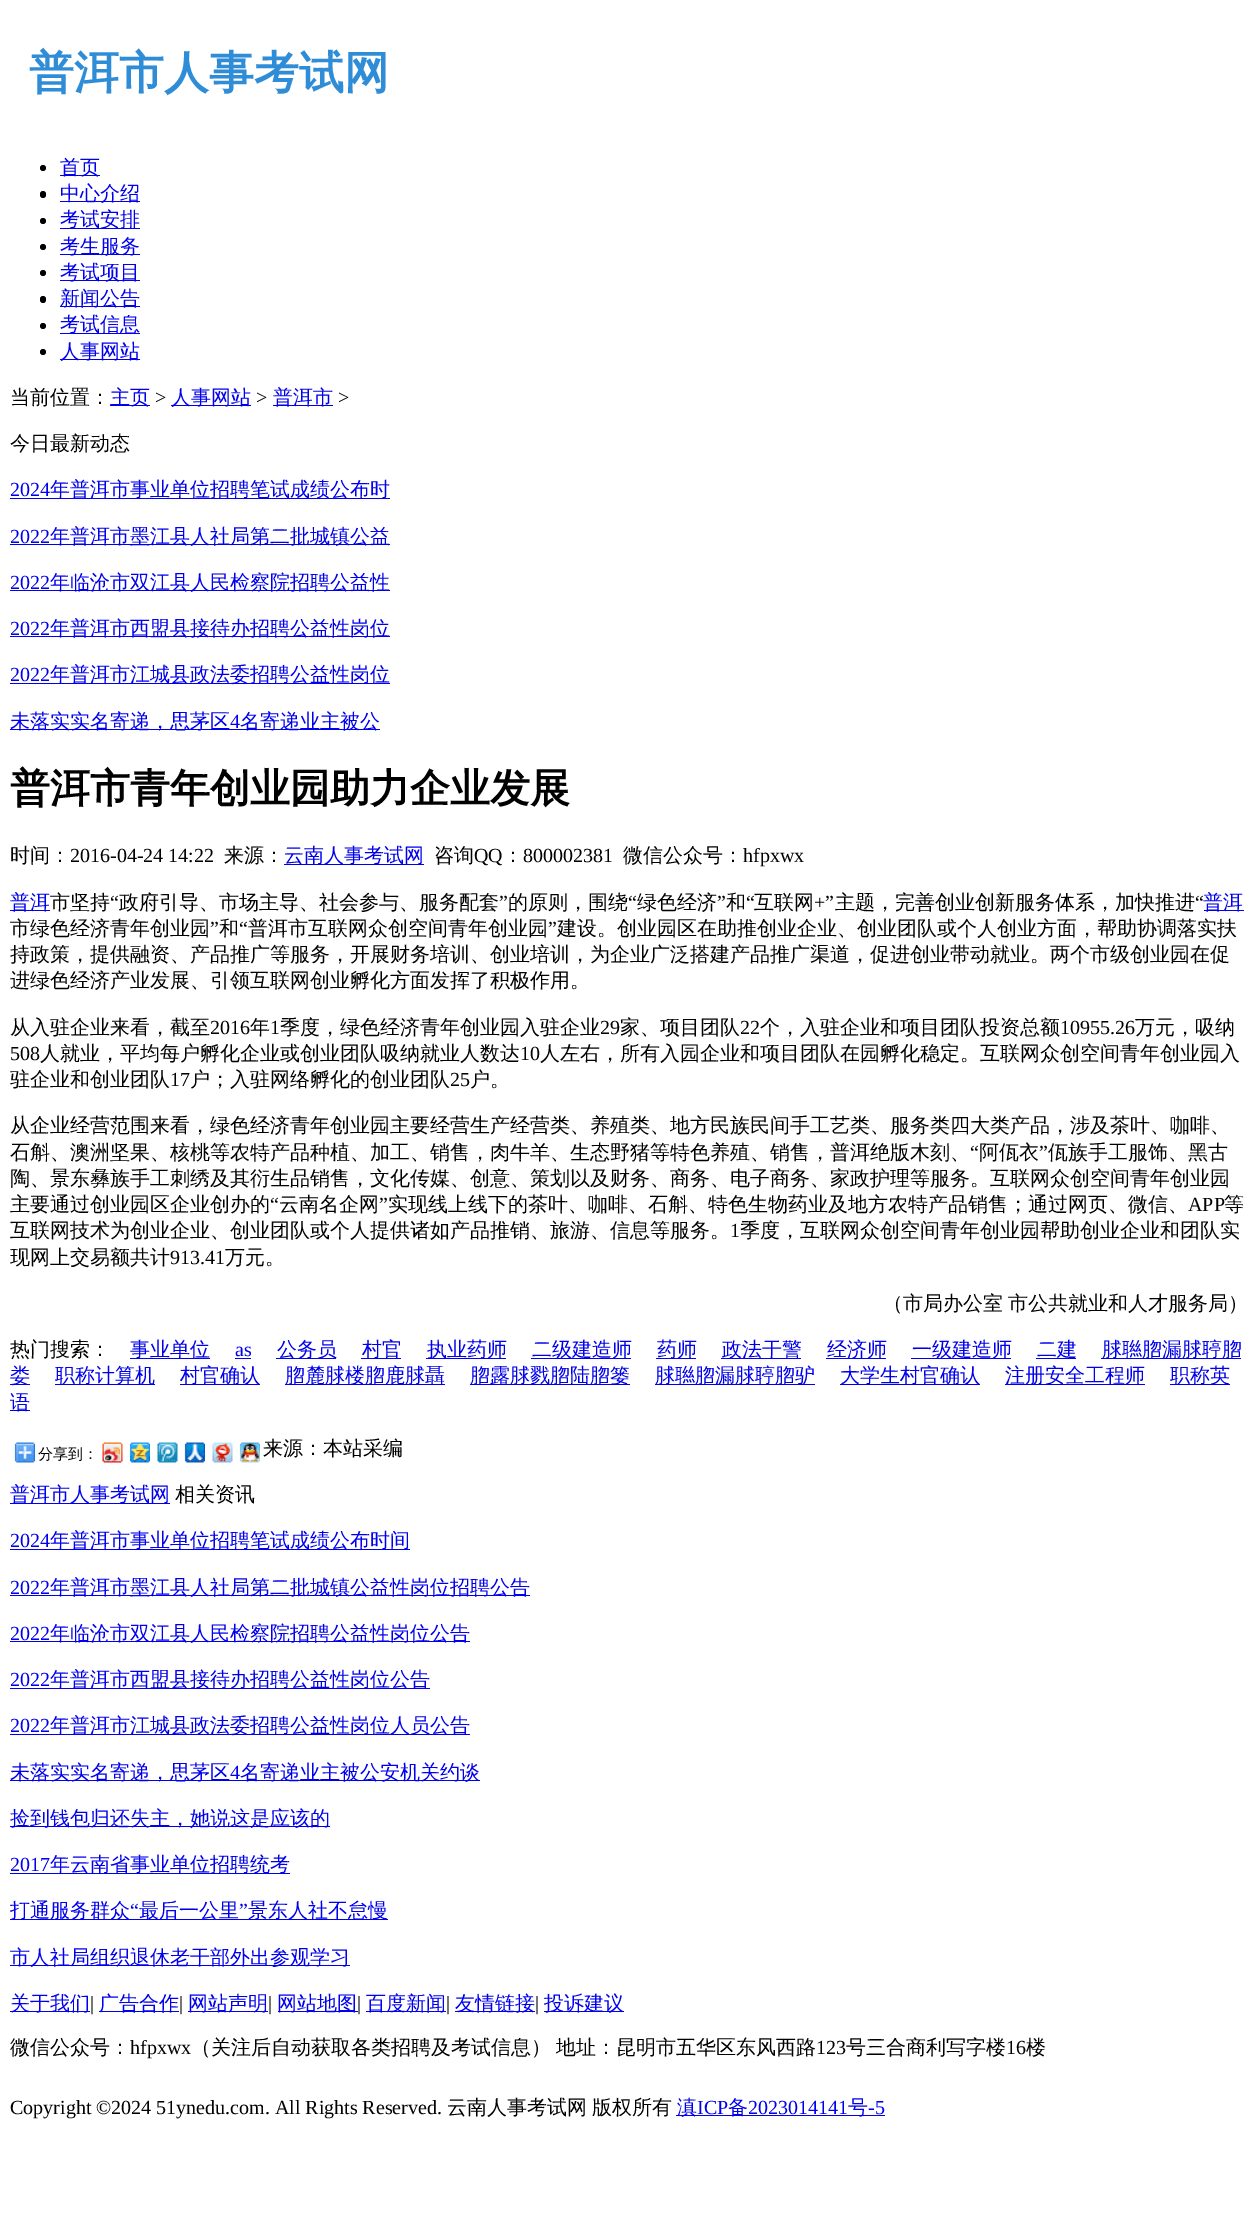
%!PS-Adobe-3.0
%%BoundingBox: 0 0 1257 2229
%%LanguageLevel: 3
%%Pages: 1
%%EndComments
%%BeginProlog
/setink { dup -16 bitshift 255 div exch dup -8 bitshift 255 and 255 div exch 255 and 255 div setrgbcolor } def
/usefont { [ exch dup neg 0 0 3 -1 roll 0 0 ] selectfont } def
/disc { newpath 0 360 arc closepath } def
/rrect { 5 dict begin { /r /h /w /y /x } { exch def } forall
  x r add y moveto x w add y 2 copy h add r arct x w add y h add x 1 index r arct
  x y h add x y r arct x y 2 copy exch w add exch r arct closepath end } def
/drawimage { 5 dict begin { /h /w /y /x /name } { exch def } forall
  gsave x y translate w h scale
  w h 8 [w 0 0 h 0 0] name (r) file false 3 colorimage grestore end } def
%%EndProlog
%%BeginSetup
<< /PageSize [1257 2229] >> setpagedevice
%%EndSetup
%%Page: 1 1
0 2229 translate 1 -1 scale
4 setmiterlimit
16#FFFFFF setink
0 0 1257 2229 rectfill
/WenQuanYiZenHei-Bold 45 usefont
16#2F8DD7 setink
29 88 moveto (普洱市人事考试网) show
16#000000 setink
43 168 3 disc fill
16#0000EE setink
60 175 40 1 rectfill
/WenQuanYiZenHei-Medium 20 usefont
60 174 moveto (首页) show
16#000000 setink
40 191 6 7 3 rrect fill
16#0000EE setink
60 201 80 1 rectfill
60 200 moveto (中心介绍) show
16#000000 setink
43 221 3 disc fill
16#0000EE setink
60 228 80 1 rectfill
60 226 moveto (考试安排) show
16#000000 setink
43 247 3 disc fill
16#0000EE setink
60 254 80 1 rectfill
60 253 moveto (考生服务) show
16#000000 setink
43 273 3 disc fill
16#0000EE setink
60 280 80 1 rectfill
60 279 moveto (考试项目) show
16#000000 setink
40 296 6 7 3 rrect fill
16#0000EE setink
60 306 80 1 rectfill
60 305 moveto (新闻公告) show
16#000000 setink
43 326 3 disc fill
16#0000EE setink
60 333 80 1 rectfill
60 331 moveto (考试信息) show
16#000000 setink
43 352 3 disc fill
16#0000EE setink
60 359 80 1 rectfill
60 358 moveto (人事网站) show
16#000000 setink
10 404 moveto (当前位置：) show
16#0000EE setink
110 405 40 1 rectfill
110 404 moveto (主页) show
/LiberationSerif-Regular 20 usefont
16#000000 setink
155 404 moveto (>) show
16#0000EE setink
171 405 80 1 rectfill
/WenQuanYiZenHei-Medium 20 usefont
171 404 moveto (人事网站) show
/LiberationSerif-Regular 20 usefont
16#000000 setink
256 404 moveto (>) show
16#0000EE setink
273 405 60 1 rectfill
/WenQuanYiZenHei-Medium 20 usefont
273 404 moveto (普洱市) show
/LiberationSerif-Regular 20 usefont
16#000000 setink
338 404 moveto (>) show
/WenQuanYiZenHei-Medium 20 usefont
10 450 moveto (今日最新动态) show
/LiberationSerif-Regular 20 usefont
16#0000EE setink
10 496 moveto (2024) show
10 498 380 1 rectfill
/WenQuanYiZenHei-Medium 20 usefont
50 496 moveto (年普洱市事业单位招聘笔试成绩公布时) show
/LiberationSerif-Regular 20 usefont
10 543 moveto (2022) show
10 544 380 1 rectfill
/WenQuanYiZenHei-Medium 20 usefont
50 543 moveto (年普洱市墨江县人社局第二批城镇公益) show
/LiberationSerif-Regular 20 usefont
10 589 moveto (2022) show
10 590 380 1 rectfill
/WenQuanYiZenHei-Medium 20 usefont
50 589 moveto (年临沧市双江县人民检察院招聘公益性) show
/LiberationSerif-Regular 20 usefont
10 635 moveto (2022) show
10 636 380 1 rectfill
/WenQuanYiZenHei-Medium 20 usefont
50 635 moveto (年普洱市西盟县接待办招聘公益性岗位) show
/LiberationSerif-Regular 20 usefont
10 681 moveto (2022) show
10 683 380 1 rectfill
/WenQuanYiZenHei-Medium 20 usefont
50 681 moveto (年普洱市江城县政法委招聘公益性岗位) show
10 729 370 1 rectfill
10 728 moveto (未落实实名寄递，思茅区) show
/LiberationSerif-Regular 20 usefont
230 728 moveto (4) show
/WenQuanYiZenHei-Medium 20 usefont
240 728 moveto (名寄递业主被公) show
/WenQuanYiZenHei-Bold 40 usefont
16#000000 setink
10 802 moveto (普洱市青年创业园助力企业发展) show
/WenQuanYiZenHei-Medium 20 usefont
10 862 moveto (时间：) show
/LiberationSerif-Regular 20 usefont
70 862 moveto (2016-04-24 14:22) show
/WenQuanYiZenHei-Medium 20 usefont
224 862 moveto (来源：) show
16#0000EE setink
284 864 140 1 rectfill
284 862 moveto (云南人事考试网) show
16#000000 setink
434 862 moveto (咨询) show
/LiberationSerif-Regular 20 usefont
474 862 moveto (QQ) show
/WenQuanYiZenHei-Medium 20 usefont
503 862 moveto (：) show
/LiberationSerif-Regular 20 usefont
523 862 moveto (800002381) show
/WenQuanYiZenHei-Medium 20 usefont
623 862 moveto (微信公众号：) show
/LiberationSerif-Regular 20 usefont
743 862 moveto (hfpxwx) show
16#0000EE setink
10 910 40 1 rectfill
/WenQuanYiZenHei-Medium 20 usefont
10 909 moveto (普洱) show
16#000000 setink
50 909 moveto (市坚持) show
/LiberationSerif-Regular 20 usefont
110 909 moveto (“) show
/WenQuanYiZenHei-Medium 20 usefont
119 909 moveto (政府引导、市场主导、社会参与、服务配套) show
/LiberationSerif-Regular 20 usefont
499 909 moveto (”) show
/WenQuanYiZenHei-Medium 20 usefont
508 909 moveto (的原则，围绕) show
/LiberationSerif-Regular 20 usefont
628 909 moveto (“) show
/WenQuanYiZenHei-Medium 20 usefont
637 909 moveto (绿色经济) show
/LiberationSerif-Regular 20 usefont
717 909 moveto (”) show
/WenQuanYiZenHei-Medium 20 usefont
726 909 moveto (和) show
/LiberationSerif-Regular 20 usefont
746 909 moveto (“) show
/WenQuanYiZenHei-Medium 20 usefont
754 909 moveto (互联网) show
/LiberationSerif-Regular 20 usefont
814 909 moveto (+”) show
/WenQuanYiZenHei-Medium 20 usefont
835 909 moveto (主题，完善创业创新服务体系，加快推进) show
/LiberationSerif-Regular 20 usefont
1195 909 moveto (“) show
16#0000EE setink
1204 910 40 1 rectfill
/WenQuanYiZenHei-Medium 20 usefont
1203 909 moveto (普洱) show
16#000000 setink
10 935 moveto (市绿色经济青年创业园) show
/LiberationSerif-Regular 20 usefont
210 935 moveto (”) show
/WenQuanYiZenHei-Medium 20 usefont
219 935 moveto (和) show
/LiberationSerif-Regular 20 usefont
239 935 moveto (“) show
/WenQuanYiZenHei-Medium 20 usefont
248 935 moveto (普洱市互联网众创空间青年创业园) show
/LiberationSerif-Regular 20 usefont
548 935 moveto (”) show
/WenQuanYiZenHei-Medium 20 usefont
[
    [(建设。创业园区在助推创业企业、创业团队或个人创业方面，帮助协调落实扶) 557 935]
    [(持政策，提供融资、产品推广等服务，开展财务培训、创业培训，为企业广泛搭建产品推广渠道，促进创业带动就业。两个市级创业园在促) 10 961]
    [(进绿色经济产业发展、引领互联网创业孵化方面发挥了积极作用。) 10 987]
    [(从入驻企业来看，截至) 10 1034]
] { aload pop moveto show } forall
/LiberationSerif-Regular 20 usefont
210 1034 moveto (2016) show
/WenQuanYiZenHei-Medium 20 usefont
250 1034 moveto (年) show
/LiberationSerif-Regular 20 usefont
270 1034 moveto (1) show
/WenQuanYiZenHei-Medium 20 usefont
280 1034 moveto (季度，绿色经济青年创业园入驻企业) show
/LiberationSerif-Regular 20 usefont
600 1034 moveto (29) show
/WenQuanYiZenHei-Medium 20 usefont
620 1034 moveto (家、项目团队) show
/LiberationSerif-Regular 20 usefont
740 1034 moveto (22) show
/WenQuanYiZenHei-Medium 20 usefont
760 1034 moveto (个，入驻企业和项目团队投资总额) show
/LiberationSerif-Regular 20 usefont
1060 1034 moveto (10955.26) show
/WenQuanYiZenHei-Medium 20 usefont
1135 1034 moveto (万元，吸纳) show
/LiberationSerif-Regular 20 usefont
10 1060 moveto (508) show
/WenQuanYiZenHei-Medium 20 usefont
40 1060 moveto (人就业，平均每户孵化企业或创业团队吸纳就业人数达) show
/LiberationSerif-Regular 20 usefont
520 1060 moveto (10) show
/WenQuanYiZenHei-Medium 20 usefont
540 1060 moveto (人左右，所有入园企业和项目团队在园孵化稳定。互联网众创空间青年创业园入) show
10 1086 moveto (驻企业和创业团队) show
/LiberationSerif-Regular 20 usefont
170 1086 moveto (17) show
/WenQuanYiZenHei-Medium 20 usefont
190 1086 moveto (户；入驻网络孵化的创业团队) show
/LiberationSerif-Regular 20 usefont
450 1086 moveto (25) show
/WenQuanYiZenHei-Medium 20 usefont
[
    [(户。) 470 1086]
    [(从企业经营范围来看，绿色经济青年创业园主要经营生产经营类、养殖类、地方民族民间手工艺类、服务类四大类产品，涉及茶叶、咖啡、) 10 1132]
    [(石斛、澳洲坚果、核桃等农特产品种植、加工、销售，肉牛羊、生态野猪等特色养殖、销售，普洱绝版木刻、) 10 1159]
] { aload pop moveto show } forall
/LiberationSerif-Regular 20 usefont
970 1159 moveto (“) show
/WenQuanYiZenHei-Medium 20 usefont
979 1159 moveto (阿佤衣) show
/LiberationSerif-Regular 20 usefont
1039 1159 moveto (”) show
/WenQuanYiZenHei-Medium 20 usefont
[
    [(佤族手工服饰、黑古) 1048 1159]
    [(陶、景东彝族手工刺绣及其衍生品销售，文化传媒、创意、策划以及财务、商务、电子商务、家政护理等服务。互联网众创空间青年创业园) 10 1185]
    [(主要通过创业园区企业创办的) 10 1211]
] { aload pop moveto show } forall
/LiberationSerif-Regular 20 usefont
270 1211 moveto (“) show
/WenQuanYiZenHei-Medium 20 usefont
279 1211 moveto (云南名企网) show
/LiberationSerif-Regular 20 usefont
379 1211 moveto (”) show
/WenQuanYiZenHei-Medium 20 usefont
388 1211 moveto (实现线上线下的茶叶、咖啡、石斛、特色生物药业及地方农特产品销售；通过网页、微信、) show
/LiberationSerif-Regular 20 usefont
1188 1211 moveto (APP) show
/WenQuanYiZenHei-Medium 20 usefont
1224 1211 moveto (等) show
10 1237 moveto (互联网技术为创业企业、创业团队或个人提供诸如产品推销、旅游、信息等服务。) show
/LiberationSerif-Regular 20 usefont
730 1237 moveto (1) show
/WenQuanYiZenHei-Medium 20 usefont
740 1237 moveto (季度，互联网众创空间青年创业园帮助创业企业和团队实) show
10 1264 moveto (现网上交易额共计) show
/LiberationSerif-Regular 20 usefont
170 1264 moveto (913.41) show
/WenQuanYiZenHei-Medium 20 usefont
225 1264 moveto (万元。) show
883 1310 moveto -1 0 32 (（市局办公室 市公共就业和人才服务局）) widthshow
10 1356 moveto (热门搜索：) show
16#0000EE setink
130 1358 80 1 rectfill
130 1356 moveto (事业单位) show
/LiberationSerif-Regular 20 usefont
235 1356 moveto (as) show
235 1358 16 1 rectfill
276 1358 60 1 rectfill
/WenQuanYiZenHei-Medium 20 usefont
277 1356 moveto (公务员) show
361 1358 40 1 rectfill
362 1356 moveto (村官) show
426 1358 80 1 rectfill
427 1356 moveto (执业药师) show
531 1358 100 1 rectfill
532 1356 moveto (二级建造师) show
656 1358 40 1 rectfill
657 1356 moveto (药师) show
721 1358 80 1 rectfill
722 1356 moveto (政法干警) show
826 1358 60 1 rectfill
827 1356 moveto (经济师) show
911 1358 100 1 rectfill
912 1356 moveto (一级建造师) show
1037 1356 moveto (二建) show
1036 1358 40 1 rectfill
1101 1358 140 1 rectfill
1102 1356 moveto (脙聮脗漏脙聤脗) show
10 1384 20 1 rectfill
10 1382 moveto (娄) show
55 1384 100 1 rectfill
55 1382 moveto (职称计算机) show
180 1384 80 1 rectfill
180 1382 moveto (村官确认) show
285 1384 160 1 rectfill
285 1382 moveto (脗麓脙楼脗鹿脙聶) show
470 1384 160 1 rectfill
470 1382 moveto (脗露脙戮脗陆脗篓) show
655 1384 160 1 rectfill
655 1382 moveto (脙聮脗漏脙聤脗驴) show
840 1384 140 1 rectfill
840 1382 moveto (大学生村官确认) show
1005 1384 140 1 rectfill
1005 1382 moveto (注册安全工程师) show
1170 1384 60 1 rectfill
1170 1382 moveto (职称英) show
10 1410 20 1 rectfill
10 1409 moveto (语) show
(img1.raw) 14 1442 21 21 drawimage
/WenQuanYiZenHei-Medium 15 usefont
16#000000 setink
38 1459 moveto (分享到：) show
(img2.raw) 102 1442 21 21 drawimage
(img3.raw) 129 1442 21 21 drawimage
(img4.raw) 157 1442 21 21 drawimage
(img5.raw) 184 1442 21 21 drawimage
(img6.raw) 212 1442 21 21 drawimage
(img7.raw) 239 1442 21 21 drawimage
/WenQuanYiZenHei-Medium 20 usefont
263 1455 moveto (来源：本站采编) show
16#0000EE setink
10 1503 160 1 rectfill
10 1501 moveto (普洱市人事考试网) show
16#000000 setink
175 1501 moveto (相关资讯) show
/LiberationSerif-Regular 20 usefont
16#0000EE setink
10 1547 moveto (2024) show
10 1549 400 1 rectfill
/WenQuanYiZenHei-Medium 20 usefont
50 1547 moveto (年普洱市事业单位招聘笔试成绩公布时间) show
/LiberationSerif-Regular 20 usefont
10 1594 moveto (2022) show
10 1595 520 1 rectfill
/WenQuanYiZenHei-Medium 20 usefont
50 1594 moveto (年普洱市墨江县人社局第二批城镇公益性岗位招聘公告) show
/LiberationSerif-Regular 20 usefont
10 1640 moveto (2022) show
10 1641 460 1 rectfill
/WenQuanYiZenHei-Medium 20 usefont
50 1640 moveto (年临沧市双江县人民检察院招聘公益性岗位公告) show
/LiberationSerif-Regular 20 usefont
10 1686 moveto (2022) show
10 1688 420 1 rectfill
/WenQuanYiZenHei-Medium 20 usefont
50 1686 moveto (年普洱市西盟县接待办招聘公益性岗位公告) show
/LiberationSerif-Regular 20 usefont
10 1732 moveto (2022) show
10 1734 460 1 rectfill
/WenQuanYiZenHei-Medium 20 usefont
50 1732 moveto (年普洱市江城县政法委招聘公益性岗位人员公告) show
10 1780 470 1 rectfill
10 1779 moveto (未落实实名寄递，思茅区) show
/LiberationSerif-Regular 20 usefont
230 1779 moveto (4) show
/WenQuanYiZenHei-Medium 20 usefont
240 1779 moveto (名寄递业主被公安机关约谈) show
10 1826 320 1 rectfill
10 1825 moveto (捡到钱包归还失主，她说这是应该的) show
/LiberationSerif-Regular 20 usefont
10 1871 moveto (2017) show
10 1873 280 1 rectfill
/WenQuanYiZenHei-Medium 20 usefont
50 1871 moveto (年云南省事业单位招聘统考) show
10 1919 378 1 rectfill
10 1917 moveto (打通服务群众) show
/LiberationSerif-Regular 20 usefont
130 1917 moveto (“) show
/WenQuanYiZenHei-Medium 20 usefont
139 1917 moveto (最后一公里) show
/LiberationSerif-Regular 20 usefont
239 1917 moveto (”) show
/WenQuanYiZenHei-Medium 20 usefont
248 1917 moveto (景东人社不怠慢) show
10 1965 340 1 rectfill
10 1964 moveto (市人社局组织退休老干部外出参观学习) show
10 2011 80 1 rectfill
10 2010 moveto (关于我们) show
/LiberationSerif-Regular 20 usefont
16#000000 setink
90 2010 moveto (|) show
16#0000EE setink
99 2011 80 1 rectfill
/WenQuanYiZenHei-Medium 20 usefont
99 2010 moveto (广告合作) show
/LiberationSerif-Regular 20 usefont
16#000000 setink
179 2010 moveto (|) show
16#0000EE setink
188 2011 80 1 rectfill
/WenQuanYiZenHei-Medium 20 usefont
188 2010 moveto (网站声明) show
/LiberationSerif-Regular 20 usefont
16#000000 setink
268 2010 moveto (|) show
16#0000EE setink
278 2011 80 1 rectfill
/WenQuanYiZenHei-Medium 20 usefont
277 2010 moveto (网站地图) show
/LiberationSerif-Regular 20 usefont
16#000000 setink
357 2010 moveto (|) show
16#0000EE setink
366 2011 80 1 rectfill
/WenQuanYiZenHei-Medium 20 usefont
366 2010 moveto (百度新闻) show
/LiberationSerif-Regular 20 usefont
16#000000 setink
446 2010 moveto (|) show
16#0000EE setink
455 2011 80 1 rectfill
/WenQuanYiZenHei-Medium 20 usefont
455 2010 moveto (友情链接) show
/LiberationSerif-Regular 20 usefont
16#000000 setink
535 2010 moveto (|) show
16#0000EE setink
544 2011 80 1 rectfill
/WenQuanYiZenHei-Medium 20 usefont
544 2010 moveto (投诉建议) show
16#000000 setink
10 2054 moveto (微信公众号：) show
/LiberationSerif-Regular 20 usefont
130 2054 moveto (hfpxwx) show
/WenQuanYiZenHei-Medium 20 usefont
191 2054 moveto (（关注后自动获取各类招聘及考试信息）) show
556 2054 moveto (地址：昆明市五华区东风西路) show
/LiberationSerif-Regular 20 usefont
816 2054 moveto (123) show
/WenQuanYiZenHei-Medium 20 usefont
846 2054 moveto (号三合商利写字楼) show
/LiberationSerif-Regular 20 usefont
1006 2054 moveto (16) show
/WenQuanYiZenHei-Medium 20 usefont
1026 2054 moveto (楼) show
/LiberationSerif-Regular 20 usefont
10 2114 moveto (Copyright ©2024 51ynedu.com. All Rights Reserved.) show
/WenQuanYiZenHei-Medium 20 usefont
447 2114 moveto (云南人事考试网) show
592 2114 moveto (版权所有) show
16#0000EE setink
676 2115 209 1 rectfill
677 2114 moveto (滇) show
/LiberationSerif-Regular 20 usefont
697 2114 moveto (ICP) show
/WenQuanYiZenHei-Medium 20 usefont
728 2114 moveto (备) show
/LiberationSerif-Regular 20 usefont
748 2114 moveto (2023014141) show
/WenQuanYiZenHei-Medium 20 usefont
848 2114 moveto (号) show
/LiberationSerif-Regular 20 usefont
868 2114 moveto (-5) show
showpage
%%EOF
